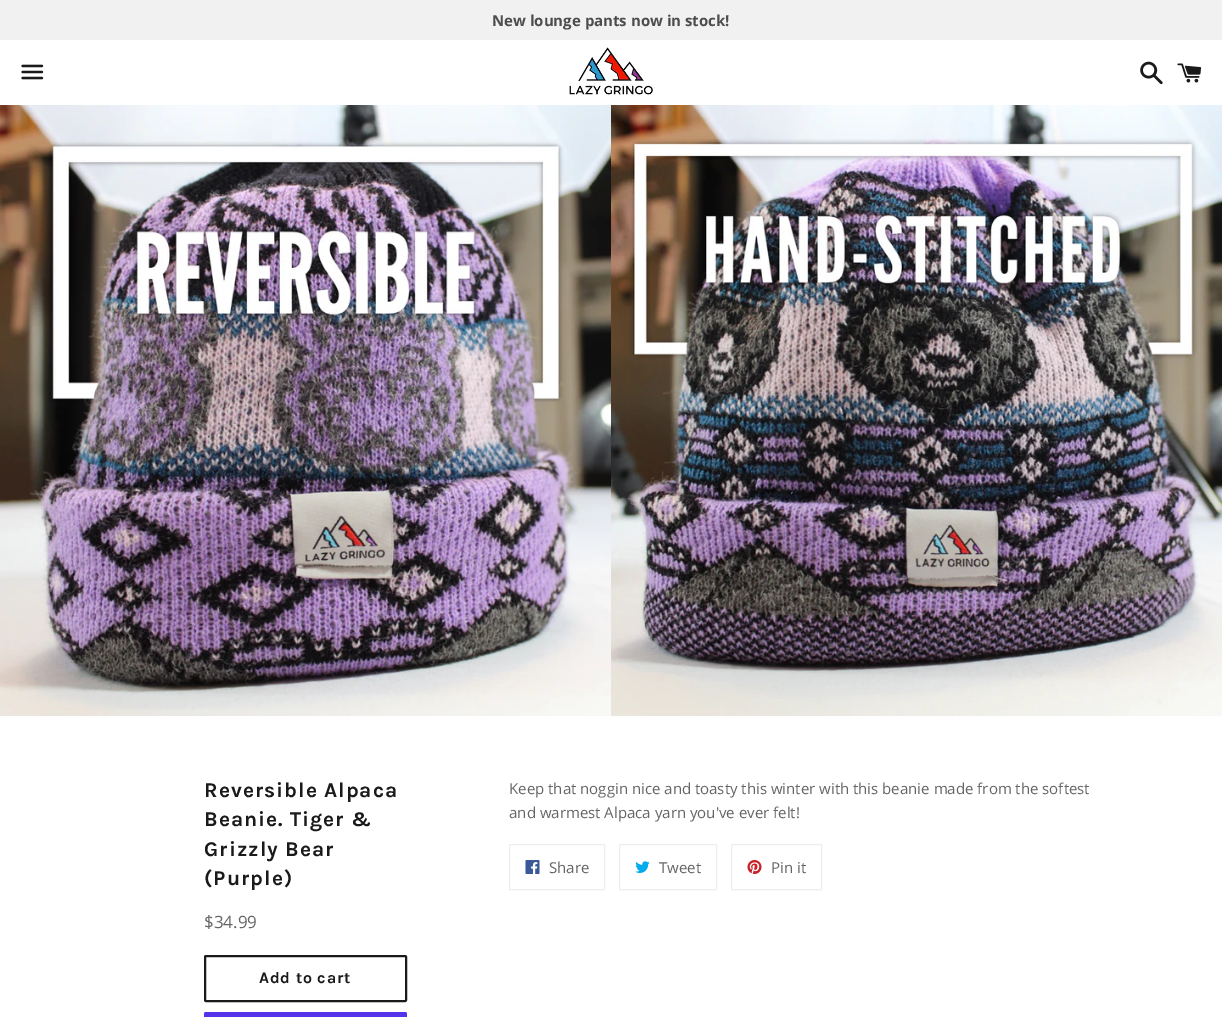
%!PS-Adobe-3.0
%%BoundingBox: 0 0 1222 1017
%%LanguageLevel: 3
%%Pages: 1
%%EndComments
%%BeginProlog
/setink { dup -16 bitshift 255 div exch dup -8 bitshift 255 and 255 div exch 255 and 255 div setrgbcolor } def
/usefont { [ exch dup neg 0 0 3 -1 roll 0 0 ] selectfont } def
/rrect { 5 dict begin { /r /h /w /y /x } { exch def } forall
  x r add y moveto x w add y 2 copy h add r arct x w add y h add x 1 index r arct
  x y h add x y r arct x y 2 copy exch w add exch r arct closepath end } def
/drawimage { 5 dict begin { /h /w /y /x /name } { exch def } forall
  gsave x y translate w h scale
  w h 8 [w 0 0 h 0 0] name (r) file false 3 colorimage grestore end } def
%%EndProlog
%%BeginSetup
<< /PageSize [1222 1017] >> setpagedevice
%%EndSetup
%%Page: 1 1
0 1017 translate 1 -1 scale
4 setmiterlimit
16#FFFFFF setink
0 0 1222 1017 rectfill
16#F1F1F1 setink
0 0 1222 40 rectfill
/OpenSans-Bold 15 usefont
16#4D4D4D setink
492 26 moveto (New lounge pants now in stock!) show
(img1.raw) 21 64 23 16 drawimage
(img2.raw) 569 47 84 48 drawimage
(img3.raw) 1140 61 23 24 drawimage
(img4.raw) 1177 63 25 20 drawimage
(img5.raw) 0 105 611 611 drawimage
(img6.raw) 611 105 611 611 drawimage
/Karla-Bold 21 usefont
16#1A1A1A setink
204 797 moveto 1 0 (Reversible Alpaca) ashow
204 826 moveto 1 0 (Beanie. Tiger &) ashow
204 856 moveto 1 0 (Grizzly Bear) ashow
204 885 moveto 1 0 (\(Purple\)) ashow
/OpenSans-Regular 17 usefont
16#666666 setink
204 928 moveto ($34.99) show
16#1A1A1A setink
2 setlinewidth
205 956 201 45 1 rrect stroke
/Karla-Bold 16 usefont
259 983 moveto 0.75 0 (Add to cart) ashow
16#5433EB setink
204 1012 203 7 2 rrect fill
/OpenSans-Regular 15 usefont
16#666666 setink
509 794 moveto (Keep that noggin nice and toasty this winter with this beanie made from the softest) show
509 818 moveto (and warmest Alpaca yarn you've ever felt!) show
16#EEEEEE setink
1 setlinewidth
509.5 844.5 95 45 rectstroke
(img7.raw) 525 860 15 14 drawimage
16#666666 setink
549 873 moveto (Share) show
16#EEEEEE setink
619.5 844.5 97 45 rectstroke
(img8.raw) 635 861 15 12 drawimage
16#666666 setink
659 873 moveto (Tweet) show
16#EEEEEE setink
731.5 844.5 90 45 rectstroke
(img9.raw) 747 860 15 14 drawimage
16#666666 setink
771 873 moveto (Pin it) show
showpage
%%EOF
